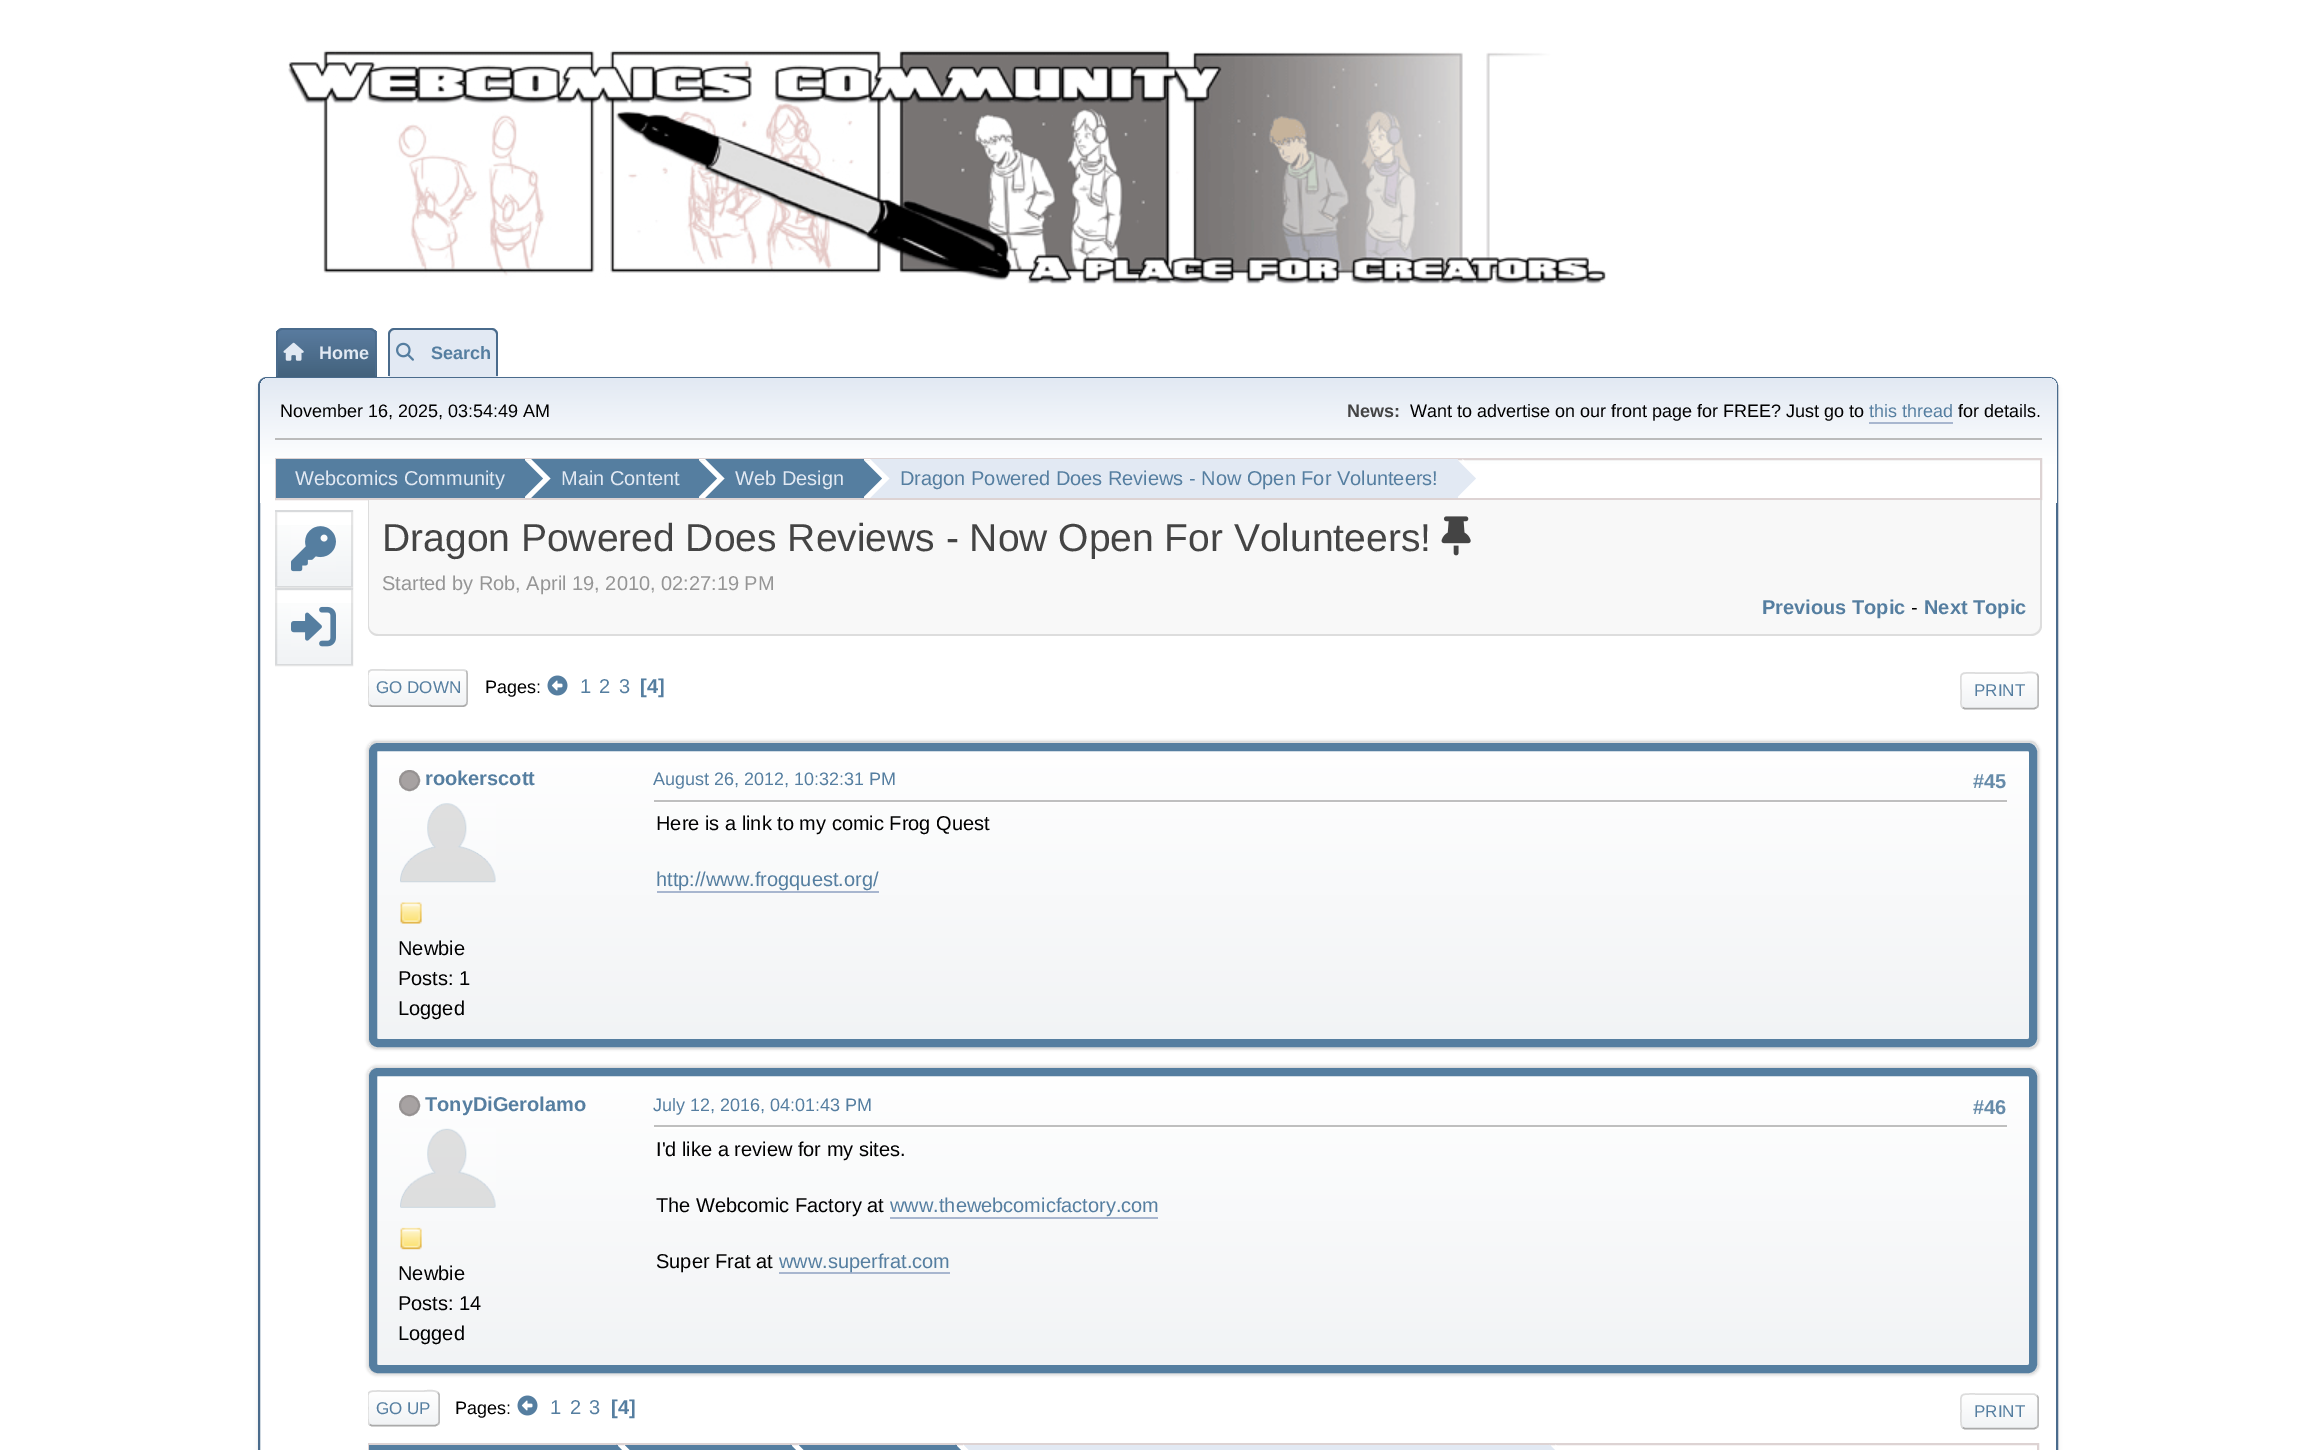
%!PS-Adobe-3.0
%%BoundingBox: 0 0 2314 1450
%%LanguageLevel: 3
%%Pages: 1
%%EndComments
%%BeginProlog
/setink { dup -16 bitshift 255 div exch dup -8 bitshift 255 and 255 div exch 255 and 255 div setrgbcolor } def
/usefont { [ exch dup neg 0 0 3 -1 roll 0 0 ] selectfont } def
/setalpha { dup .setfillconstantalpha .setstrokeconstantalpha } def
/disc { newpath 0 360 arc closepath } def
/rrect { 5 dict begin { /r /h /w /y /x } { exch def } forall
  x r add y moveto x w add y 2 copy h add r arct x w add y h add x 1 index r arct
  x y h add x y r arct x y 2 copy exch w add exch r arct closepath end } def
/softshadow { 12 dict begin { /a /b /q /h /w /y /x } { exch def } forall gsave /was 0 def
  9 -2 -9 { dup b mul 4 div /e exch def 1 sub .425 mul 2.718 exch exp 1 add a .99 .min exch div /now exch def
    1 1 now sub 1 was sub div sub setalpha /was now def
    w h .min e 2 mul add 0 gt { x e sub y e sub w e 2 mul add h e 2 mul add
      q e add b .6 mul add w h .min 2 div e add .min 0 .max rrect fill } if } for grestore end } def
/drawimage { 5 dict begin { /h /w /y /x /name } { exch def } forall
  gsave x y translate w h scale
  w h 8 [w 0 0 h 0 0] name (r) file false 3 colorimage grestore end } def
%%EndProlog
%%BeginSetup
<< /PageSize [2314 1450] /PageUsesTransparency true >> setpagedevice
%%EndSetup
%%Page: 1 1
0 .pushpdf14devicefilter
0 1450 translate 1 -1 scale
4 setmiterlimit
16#FFFFFF setink
0 0 2314 1450 rectfill
(img1.raw) 288 50 1318 235 drawimage
gsave
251 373 moveto 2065 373 lineto 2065 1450 lineto 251 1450 lineto closepath 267 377 moveto 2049 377 lineto 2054 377 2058 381 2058 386 curveto 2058 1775 lineto 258 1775 lineto 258 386 lineto 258 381 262 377 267 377 curveto closepath eoclip newpath
16#000000 setink
258 380 1800 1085 9 2 0.1 softshadow
grestore
gsave
282 329 moveto 371 329 lineto 374.5 329 377 331.5 377 335 curveto 377 377 lineto 276 377 lineto 276 335 lineto 276 331.5 278.5 329 282 329 curveto closepath clip newpath
gsave 276 330 moveto 377 330 lineto 377 377 lineto 276 377 lineto closepath clip newpath
<< /ShadingType 2 /ColorSpace /DeviceRGB /Coords [326 330 326 377] /Extend [true true] /Function << /FunctionType 2 /Domain [0 1] /C0 [0.349 0.482 0.624] /C1 [0.263 0.384 0.486] /N 1 >> >> shfill grestore
grestore
16#4A6B8C setink
282 328 moveto 370 328 lineto 374 328 376 331 376 334 curveto 376 376 lineto 276 376 lineto 276 334 lineto 276 331 279 328 282 328 curveto closepath 282 330 moveto 370 330 lineto 373 330 375 332 375 334 curveto 375 376 lineto 278 376 lineto 278 334 lineto 278 332 280 330 282 330 curveto closepath eofill
(img2.raw) 283 342 21 19 drawimage
/LiberationSans-Bold 18 usefont
16#E2E9F3 setink
319 359 moveto (Home) show
395 329 moveto 492 329 lineto 495.5 329 498 331.5 498 335 curveto 498 377 lineto 389 377 lineto 389 335 lineto 389 331.5 391.5 329 395 329 curveto closepath fill
16#4A6B8C setink
394 328 moveto 492 328 lineto 495 328 498 331 498 334 curveto 498 376 lineto 388 376 lineto 388 334 lineto 388 331 391 328 394 328 curveto closepath 394 330 moveto 492 330 lineto 494 330 496 332 496 334 curveto 496 376 lineto 390 376 lineto 390 334 lineto 390 332 392 330 394 330 curveto closepath eofill
(img3.raw) 396 342 18 19 drawimage
16#557EA0 setink
431 359 moveto (Search) show
16#4A6B8C setink
2 setlinewidth
267 378 moveto 2049 378 lineto 2053.5 378 2057 381.5 2057 386 curveto 2057 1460 lineto 259 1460 lineto 259 386 lineto 259 381.5 262.5 378 267 378 curveto closepath stroke
gsave 269 378 moveto 2048 378 lineto 2053 378 2057 382 2057 387 curveto 2057 503 lineto 260 503 lineto 260 387 lineto 260 382 264 378 269 378 curveto closepath clip newpath
<< /ShadingType 2 /ColorSpace /DeviceRGB /Coords [1158 378 1158 503] /Extend [true true] /Function << /FunctionType 3 /Domain [0 1] /Functions [<< /FunctionType 2 /Domain [0 1] /C0 [0.886 0.914 0.953] /C1 [1 1 1] /N 1 >> << /FunctionType 2 /Domain [0 1] /C0 [1 1 1] /C1 [1 1 1] /N 1 >>] /Bounds [0.7] /Encode [0 1 0 1] >> >> shfill grestore
16#BBBBBB setink
275 438 1767 2 rectfill
/LiberationSans-Regular 18 usefont
16#000000 setink
280 417 moveto (November 16, 2025, 03:54:49 AM) show
/LiberationSans-Bold 18 usefont
16#444444 setink
1347 417 moveto (News:) show
/LiberationSans-Regular 18 usefont
16#000000 setink
1410 417 moveto (Want to advertise on our front page for FREE? Just go to) show
16#557EA0 setink
1869 417 moveto (this thread) show
16#A8B6CF setink
1869 422 84 2 rectfill
16#000000 setink
1958 417 moveto (for details.) show
16#DDD3D3 setink
276 459 1765 40 rectstroke
[
    [525 459 345 1 16#FFFFFF]
    [276 459 249 39 16#557EA0]
    [531 459 168 39 16#557EA0]
] { aload pop setink rectfill } forall
16#FFFFFF setink
531 498 moveto 531 459 lineto 550.5 478.5 lineto closepath fill
16#557EA0 setink
523.5 498 moveto 523.5 459 lineto 543 478.5 lineto closepath fill
/LiberationSans-Regular 20 usefont
16#E2E9F3 setink
295 485 moveto (Webcomics Community) show
16#557EA0 setink
705 459 159 39 rectfill
16#FFFFFF setink
705 498 moveto 705 459 lineto 724.5 478.5 lineto closepath fill
16#557EA0 setink
697.5 498 moveto 697.5 459 lineto 717 478.5 lineto closepath fill
16#E2E9F3 setink
561 485 moveto (Main Content) show
870 459 588 39 rectfill
16#FFFFFF setink
870 498 moveto 870 459 lineto 889.5 478.5 lineto closepath fill
16#557EA0 setink
862.5 498 moveto 862.5 459 lineto 882 478.5 lineto closepath fill
16#E2E9F3 setink
735 485 moveto (Web Design) show
16#FFFFFF setink
1462.5 498 moveto 1462.5 459 lineto 1482 478.5 lineto closepath fill
16#E2E9F3 setink
1456.5 498 moveto 1456.5 459 lineto 1476 478.5 lineto closepath fill
16#557EA0 setink
900 485 moveto (Dragon Powered Does Reviews - Now Open For Volunteers!) show
gsave 275 510 moveto 353 510 lineto 353 512 lineto 275 512 lineto closepath clip newpath
<< /ShadingType 2 /ColorSpace /DeviceRGB /Coords [314 437 314 512] /Extend [true true] /Function << /FunctionType 3 /Domain [0 1] /Functions [<< /FunctionType 2 /Domain [0 1] /C0 [1 1 1] /C1 [0.945 0.953 0.961] /N 1 >> << /FunctionType 2 /Domain [0 1] /C0 [0.945 0.953 0.961] /C1 [0.945 0.953 0.961] /N 1 >>] /Bounds [0.95] /Encode [0 1 0 1] >> >> shfill grestore
gsave 275 525 moveto 353 525 lineto 353 587 lineto 275 587 lineto closepath clip newpath
<< /ShadingType 2 /ColorSpace /DeviceRGB /Coords [314 512 314 587] /Extend [true true] /Function << /FunctionType 3 /Domain [0 1] /Functions [<< /FunctionType 2 /Domain [0 1] /C0 [1 1 1] /C1 [0.945 0.953 0.961] /N 1 >> << /FunctionType 2 /Domain [0 1] /C0 [0.945 0.953 0.961] /C1 [0.945 0.953 0.961] /N 1 >>] /Bounds [0.95] /Encode [0 1 0 1] >> >> shfill grestore
0.1 setalpha
16#000000 setink
276 511 76 76 rectstroke
1 setalpha
(img4.raw) 291 526 45 46 drawimage
gsave 275 588 moveto 353 588 lineto 353 590 lineto 275 590 lineto closepath clip newpath
<< /ShadingType 2 /ColorSpace /DeviceRGB /Coords [314 515 314 590] /Extend [true true] /Function << /FunctionType 3 /Domain [0 1] /Functions [<< /FunctionType 2 /Domain [0 1] /C0 [1 1 1] /C1 [0.945 0.953 0.961] /N 1 >> << /FunctionType 2 /Domain [0 1] /C0 [0.945 0.953 0.961] /C1 [0.945 0.953 0.961] /N 1 >>] /Bounds [0.95] /Encode [0 1 0 1] >> >> shfill grestore
gsave 275 603 moveto 353 603 lineto 353 665 lineto 275 665 lineto closepath clip newpath
<< /ShadingType 2 /ColorSpace /DeviceRGB /Coords [314 590 314 665] /Extend [true true] /Function << /FunctionType 3 /Domain [0 1] /Functions [<< /FunctionType 2 /Domain [0 1] /C0 [1 1 1] /C1 [0.945 0.953 0.961] /N 1 >> << /FunctionType 2 /Domain [0 1] /C0 [0.945 0.953 0.961] /C1 [0.945 0.953 0.961] /N 1 >>] /Bounds [0.95] /Encode [0 1 0 1] >> >> shfill grestore
0.1 setalpha
276 589 76 76 rectstroke
1 setalpha
(img5.raw) 291 606 45 41 drawimage
16#F8F8F8 setink
368 500 moveto 2042 500 lineto 2042 625 lineto 2042 631 2037 636 2031 636 curveto 379 636 lineto 373 636 368 631 368 625 curveto closepath fill
16#DDDDDD setink
368 500 moveto 2042 500 lineto 2042 626 lineto 2042 631 2037 636 2031 636 curveto 378 636 lineto 372 636 368 631 368 626 curveto closepath 369 500 moveto 2040 500 lineto 2040 626 lineto 2040 630 2036 634 2031 634 curveto 378 634 lineto 373 634 369 630 369 626 curveto closepath eofill
/LiberationSans-Regular 39 usefont
16#444444 setink
382 551 moveto (Dragon Powered Does Reviews - Now Open For Volunteers!) show
(img6.raw) 1441 516 30 40 drawimage
/LiberationSans-Regular 20 usefont
16#959595 setink
382 590 moveto (Started by Rob, April 19, 2010, 02:27:19 PM) show
/LiberationSans-Bold 20 usefont
16#557EA0 setink
1762 614 moveto (Previous Topic) show
/LiberationSans-Regular 20 usefont
16#000000 setink
1911 614 moveto (-) show
/LiberationSans-Bold 20 usefont
16#557EA0 setink
1924 614 moveto (Next Topic) show
gsave
368 669 100 38 5 rrect clip newpath
gsave 368 669 moveto 468 669 lineto 468 671 lineto 368 671 lineto closepath clip newpath
<< /ShadingType 2 /ColorSpace /DeviceRGB /Coords [418 636 418 671] /Extend [true true] /Function << /FunctionType 2 /Domain [0 1] /C0 [1 1 1] /C1 [0.945 0.953 0.961] /N 1 >> >> shfill grestore
gsave 368 671 moveto 468 671 lineto 468 705 lineto 368 705 lineto closepath clip newpath
<< /ShadingType 2 /ColorSpace /DeviceRGB /Coords [418 671 418 705] /Extend [true true] /Function << /FunctionType 2 /Domain [0 1] /C0 [1 1 1] /C1 [0.945 0.953 0.961] /N 1 >> >> shfill grestore
grestore
16#BBBBBB setink
1.5 setlinewidth
466 671 moveto 467 671.5 467 672.5 467 673.5 curveto 467 702 lineto 467 703 467 704 466 704.5 curveto stroke
16#AAAAAA setink
466 704.5 moveto 465.5 705.5 464.5 706 463.5 706 curveto 372 706 lineto 371 706 370 705.5 369.5 704.5 curveto stroke
gsave
368 659 1671 64 rectclip
16#DDDDDD setink
369.5 704.5 moveto 367.5 703 368 699.5 368 697 curveto 368 688 lineto 368 666.5 365 670 387 670 curveto 463.5 670 lineto 466 671 lineto stroke
grestore
/LiberationSans-Regular 17 usefont
16#557EA0 setink
376 693 moveto (GO DOWN) show
/LiberationSans-Regular 18 usefont
16#000000 setink
485 693 moveto (Pages:) show
(img7.raw) 547 675 21 21 drawimage
/LiberationSans-Regular 20 usefont
16#557EA0 setink
[
    [(1) 580 693]
    [(2) 599 693]
    [(3) 619 693]
] { aload pop moveto show } forall
/LiberationSans-Bold 20 usefont
640 693 moveto ([4]) show
gsave
1961 672 78 38 5 rrect clip newpath
gsave 1961 672 moveto 2039 672 lineto 2039 674 lineto 1961 674 lineto closepath clip newpath
<< /ShadingType 2 /ColorSpace /DeviceRGB /Coords [2000 639 2000 674] /Extend [true true] /Function << /FunctionType 2 /Domain [0 1] /C0 [1 1 1] /C1 [0.945 0.953 0.961] /N 1 >> >> shfill grestore
gsave 1961 674 moveto 2039 674 lineto 2039 708 lineto 1961 708 lineto closepath clip newpath
<< /ShadingType 2 /ColorSpace /DeviceRGB /Coords [2000 674 2000 708] /Extend [true true] /Function << /FunctionType 2 /Domain [0 1] /C0 [1 1 1] /C1 [0.945 0.953 0.961] /N 1 >> >> shfill grestore
grestore
16#BBBBBB setink
2036.5 674 moveto 2037.5 674.5 2038 675.5 2038 676.5 curveto 2038 705 lineto 2038 706 2037.5 707 2036.5 707.5 curveto stroke
16#AAAAAA setink
2036.5 707.5 moveto 2034.5 708.5 lineto 1964.5 708.5 lineto 1962.5 707.5 lineto stroke
16#DDDDDD setink
1962.5 707.5 moveto 1960.5 706 1961 702.5 1961 700 curveto 1961 691 lineto 1961 671 1957.5 673 1976.5 673 curveto 2022.5 673 lineto 2023.5 673 2034 671 2036.5 674 curveto stroke
/LiberationSans-Regular 17 usefont
16#557EA0 setink
1974 696 moveto (PRINT) show
16#000000 setink
366 740 1674 310 11 1 0.1 softshadow
gsave
368 741 1671 308 9 rrect clip newpath
gsave 368 743 moveto 2039 743 lineto 2039 1047 lineto 368 1047 lineto closepath clip newpath
<< /ShadingType 2 /ColorSpace /DeviceRGB /Coords [1203 742 1203 1047] /Extend [true true] /Function << /FunctionType 2 /Domain [0 1] /C0 [1 1 1] /C1 [0.945 0.953 0.961] /N 1 >> >> shfill grestore
grestore
16#DDDDDD setink
2 setlinewidth
369 742 1669 306 8 rrect stroke
16#557EA0 setink
8 setlinewidth
373 747 1660 296 5 rrect stroke
16#A7A2A2 setink
409.5 780.5 9.5 disc gsave fill grestore
16#969292 setink
2 setlinewidth
stroke
/LiberationSans-Bold 20 usefont
16#557EA0 setink
425 785 moveto (rookerscott) show
(img8.raw) 400 803 96 80 drawimage
(img9.raw) 400 902 22 22 drawimage
/LiberationSans-Regular 20 usefont
16#000000 setink
[
    [(Newbie) 398 955]
    [(Posts: 1) 398 985]
    [(Logged) 398 1015]
] { aload pop moveto show } forall
/LiberationSans-Regular 18 usefont
16#557EA0 setink
653 785 moveto (August 26, 2012, 10:32:31 PM) show
/LiberationSans-Bold 20 usefont
16#668BA9 setink
1973 788 moveto (#45) show
16#FFFFFF setink
654 802 1353 1 rectfill
16#BFBFBF setink
654 800 1353 2 rectfill
/LiberationSans-Regular 20 usefont
16#000000 setink
656 830 moveto (Here is a link to my comic Frog Quest) show
16#557EA0 setink
656 886 moveto (http://www.frogquest.org/) show
16#A8B6CF setink
657 891 222 2 rectfill
16#000000 setink
366 1065 1674 311 11 1 0.1 softshadow
gsave
368 1067 1671 307 9 rrect clip newpath
gsave 368 1068 moveto 2039 1068 lineto 2039 1373 lineto 368 1373 lineto closepath clip newpath
<< /ShadingType 2 /ColorSpace /DeviceRGB /Coords [1203 1068 1203 1373] /Extend [true true] /Function << /FunctionType 2 /Domain [0 1] /C0 [1 1 1] /C1 [0.945 0.953 0.961] /N 1 >> >> shfill grestore
grestore
16#DDDDDD setink
369 1068 1669 305 8 rrect stroke
16#557EA0 setink
8 setlinewidth
373 1072 1660 297 5 rrect stroke
16#A7A2A2 setink
409.5 1105.5 9.5 disc gsave fill grestore
16#969292 setink
2 setlinewidth
stroke
/LiberationSans-Bold 20 usefont
16#557EA0 setink
425 1111 moveto (TonyDiGerolamo) show
(img10.raw) 400 1128 96 80 drawimage
(img11.raw) 400 1227 22 23 drawimage
/LiberationSans-Regular 20 usefont
16#000000 setink
[
    [(Newbie) 398 1280]
    [(Posts: 14) 398 1310]
    [(Logged) 398 1340]
] { aload pop moveto show } forall
/LiberationSans-Regular 18 usefont
16#557EA0 setink
653 1111 moveto (July 12, 2016, 04:01:43 PM) show
/LiberationSans-Bold 20 usefont
16#668BA9 setink
1973 1114 moveto (#46) show
16#FFFFFF setink
654 1127 1353 2 rectfill
16#BFBFBF setink
654 1125 1353 2 rectfill
/LiberationSans-Regular 20 usefont
16#000000 setink
656 1156 moveto (I'd like a review for my sites.) show
656 1212 moveto (The Webcomic Factory at) show
16#557EA0 setink
890 1212 moveto (www.thewebcomicfactory.com) show
16#A8B6CF setink
890 1217 268 2 rectfill
16#000000 setink
656 1268 moveto (Super Frat at) show
16#A8B6CF setink
779 1272 171 2 rectfill
16#557EA0 setink
779 1268 moveto (www.superfrat.com) show
gsave
368 1391 72 36 5 rrect clip newpath
gsave 368 1391 moveto 440 1391 lineto 440 1392 lineto 368 1392 lineto closepath clip newpath
<< /ShadingType 2 /ColorSpace /DeviceRGB /Coords [404 1359 404 1392] /Extend [true true] /Function << /FunctionType 2 /Domain [0 1] /C0 [1 1 1] /C1 [0.945 0.953 0.961] /N 1 >> >> shfill grestore
gsave 368 1392 moveto 440 1392 lineto 440 1425 lineto 368 1425 lineto closepath clip newpath
<< /ShadingType 2 /ColorSpace /DeviceRGB /Coords [404 1392 404 1425] /Extend [true true] /Function << /FunctionType 2 /Domain [0 1] /C0 [1 1 1] /C1 [0.945 0.953 0.961] /N 1 >> >> shfill grestore
grestore
16#BBBBBB setink
1.5 setlinewidth
437.5 1392.5 moveto 438.5 1393 439 1394 439 1395 curveto 439 1422 lineto 439 1423 438.5 1424 437.5 1424.5 curveto stroke
16#AAAAAA setink
437.5 1424.5 moveto 435.5 1425.5 lineto 371.5 1425.5 lineto 369.5 1424.5 lineto stroke
gsave
368 1380 1671 63 rectclip
16#DDDDDD setink
369.5 1424.5 moveto 367 1422.5 368 1411.5 368 1408.5 curveto 368 1390 365 1391 382.5 1391 curveto 424.5 1391 lineto 424.5 1391 435 1389.5 437.5 1392.5 curveto stroke
grestore
/LiberationSans-Regular 17 usefont
16#557EA0 setink
376 1414 moveto (GO UP) show
/LiberationSans-Regular 18 usefont
16#000000 setink
455 1414 moveto (Pages:) show
(img7.raw) 517 1395 21 21 drawimage
/LiberationSans-Regular 20 usefont
16#557EA0 setink
[
    [(1) 550 1414]
    [(2) 570 1414]
    [(3) 589 1414]
] { aload pop moveto show } forall
/LiberationSans-Bold 20 usefont
611 1414 moveto ([4]) show
gsave
1961 1394 78 36 5 rrect clip newpath
gsave 1961 1395 moveto 2039 1395 lineto 2039 1428 lineto 1961 1428 lineto closepath clip newpath
<< /ShadingType 2 /ColorSpace /DeviceRGB /Coords [2000 1395 2000 1428] /Extend [true true] /Function << /FunctionType 2 /Domain [0 1] /C0 [1 1 1] /C1 [0.945 0.953 0.961] /N 1 >> >> shfill grestore
grestore
16#BBBBBB setink
2036.5 1395.5 moveto 2037.5 1396 2038 1397 2038 1398 curveto 2038 1425 lineto 2038 1426 2037.5 1427 2036.5 1427.5 curveto stroke
16#AAAAAA setink
2036.5 1427.5 moveto 2034.5 1428.5 lineto 1964.5 1428.5 lineto 1962.5 1427.5 lineto stroke
16#DDDDDD setink
1962.5 1427.5 moveto 1960 1425.5 1961 1414.5 1961 1411.5 curveto 1961 1392.5 1958 1394 1976.5 1394 curveto 2034 1394 lineto 2036.5 1395.5 lineto stroke
/LiberationSans-Regular 17 usefont
16#557EA0 setink
1974 1417 moveto (PRINT) show
16#DDD3D3 setink
2 setlinewidth
369 1444 1669 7 rectstroke
16#557EA0 setink
369 1445 249 5 rectfill
616.5 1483.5 moveto 616.5 1444.5 lineto 636 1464 lineto closepath fill
624 1445 168 5 rectfill
16#FFFFFF setink
624 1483.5 moveto 624 1444.5 lineto 643.5 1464 lineto closepath fill
16#557EA0 setink
790.5 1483.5 moveto 790.5 1444.5 lineto 810 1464 lineto closepath fill
798 1445 159 5 rectfill
16#FFFFFF setink
798 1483.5 moveto 798 1444.5 lineto 817.5 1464 lineto closepath fill
16#557EA0 setink
955.5 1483.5 moveto 955.5 1444.5 lineto 975 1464 lineto closepath fill
16#E2E9F3 setink
963 1445 588 5 rectfill
16#FFFFFF setink
963 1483.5 moveto 963 1444.5 lineto 982.5 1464 lineto closepath fill
16#E2E9F3 setink
1549.5 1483.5 moveto 1549.5 1444.5 lineto 1569 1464 lineto closepath fill
16#FFFFFF setink
1555.5 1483.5 moveto 1555.5 1444.5 lineto 1575 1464 lineto closepath fill
.poppdf14devicefilter showpage
%%EOF
